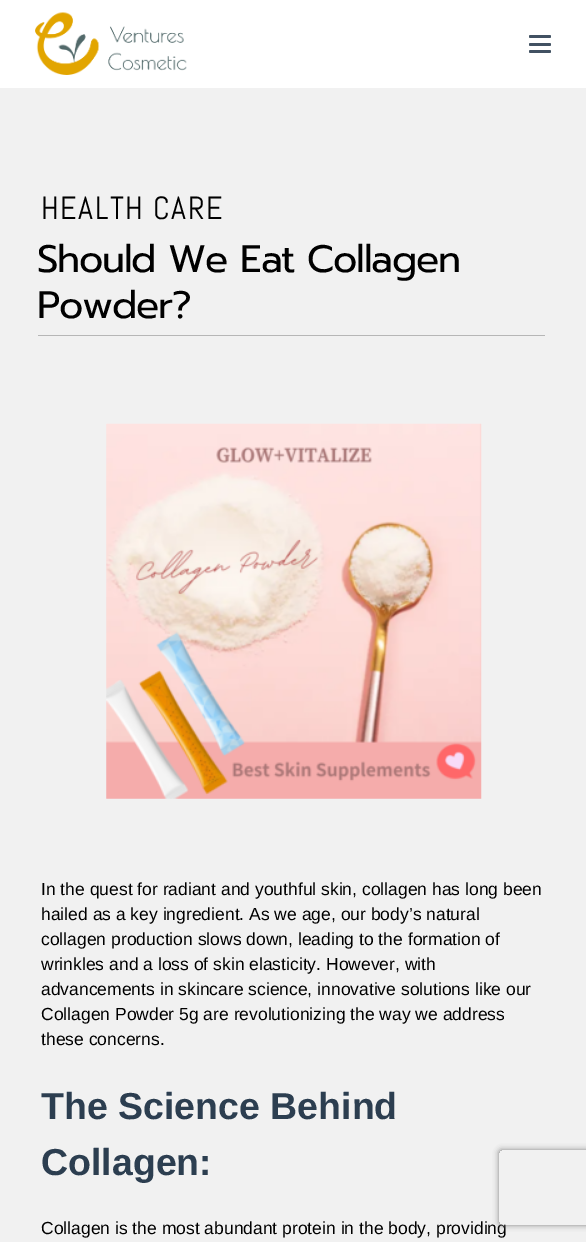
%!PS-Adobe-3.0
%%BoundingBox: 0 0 586 1242
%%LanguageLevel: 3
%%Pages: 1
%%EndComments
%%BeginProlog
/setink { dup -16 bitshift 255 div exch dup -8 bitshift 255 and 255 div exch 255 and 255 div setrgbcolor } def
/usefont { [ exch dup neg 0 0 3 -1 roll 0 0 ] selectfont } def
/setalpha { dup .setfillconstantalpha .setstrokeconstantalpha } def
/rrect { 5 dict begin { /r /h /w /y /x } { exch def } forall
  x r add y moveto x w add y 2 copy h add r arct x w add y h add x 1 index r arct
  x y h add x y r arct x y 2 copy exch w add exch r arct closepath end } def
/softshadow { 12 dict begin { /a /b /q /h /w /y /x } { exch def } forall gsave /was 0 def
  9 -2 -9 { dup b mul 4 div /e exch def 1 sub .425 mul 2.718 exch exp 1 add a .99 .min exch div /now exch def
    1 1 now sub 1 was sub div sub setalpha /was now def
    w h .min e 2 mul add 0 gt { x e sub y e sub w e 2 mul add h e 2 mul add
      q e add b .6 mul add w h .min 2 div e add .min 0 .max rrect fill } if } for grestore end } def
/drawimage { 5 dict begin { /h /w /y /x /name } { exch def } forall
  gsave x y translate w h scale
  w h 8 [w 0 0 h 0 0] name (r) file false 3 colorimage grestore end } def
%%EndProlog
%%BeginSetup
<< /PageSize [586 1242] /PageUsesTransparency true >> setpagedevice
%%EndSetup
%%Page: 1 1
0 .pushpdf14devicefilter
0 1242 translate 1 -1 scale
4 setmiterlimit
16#F1F1F1 setink
0 0 586 1242 rectfill
16#FFFFFF setink
0 0 586 88 rectfill
(img1.raw) 35 12 152 63 drawimage
16#415162 setink
529 43 22 3 1.5 rrect fill
529 35 22 3 1.5 rrect fill
529 50 22 3 1.5 rrect fill
/Abel-Regular 32 usefont
16#000000 setink
41 219 moveto 1.5 0 (HEALTH CARE) ashow
16#B6B6B6 setink
38 335 507 1 rectfill
/Prompt-Regular 38.25 usefont
16#000000 setink
37 272 moveto -1.25 0 (Should We Eat Collagen) ashow
37 318 moveto -1.25 0 (Powder?) ashow
(img2.raw) 106 423 376 376 drawimage
/LiberationSans-Regular 17.5 usefont
[
    [(In the quest for radiant and youthful skin, collagen has long been) 41 895]
    [(hailed as a key ingredient. As we age, our body’s natural) 41 920]
    [(collagen production slows down, leading to the formation of) 41 945]
    [(wrinkles and a loss of skin elasticity. However, with) 41 970]
    [(advancements in skincare science, innovative solutions like our) 41 995]
    [(Collagen Powder 5g are revolutionizing the way we address) 41 1020]
    [(these concerns.) 41 1045]
] { aload pop moveto show } forall
/LiberationSans-Bold 37.5 usefont
16#2C3E50 setink
41 1119 moveto (The Science Behind) show
41 1175 moveto (Collagen:) show
/LiberationSans-Regular 17.5 usefont
16#000000 setink
41 1234 moveto (Collagen is the most abundant protein in the body, providing) show
gsave
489 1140 moveto 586 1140 lineto 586 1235 lineto 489 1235 lineto closepath 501.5 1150 moveto 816.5 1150 lineto 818 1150 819 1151 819 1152.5 curveto 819 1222.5 lineto 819 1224 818 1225 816.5 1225 curveto 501.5 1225 lineto 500 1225 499 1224 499 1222.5 curveto 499 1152.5 lineto 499 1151 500 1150 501.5 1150 curveto closepath eoclip newpath
16#808080 setink
499 1150 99 75 2.5 3 1 softshadow
grestore
.poppdf14devicefilter showpage
%%EOF
